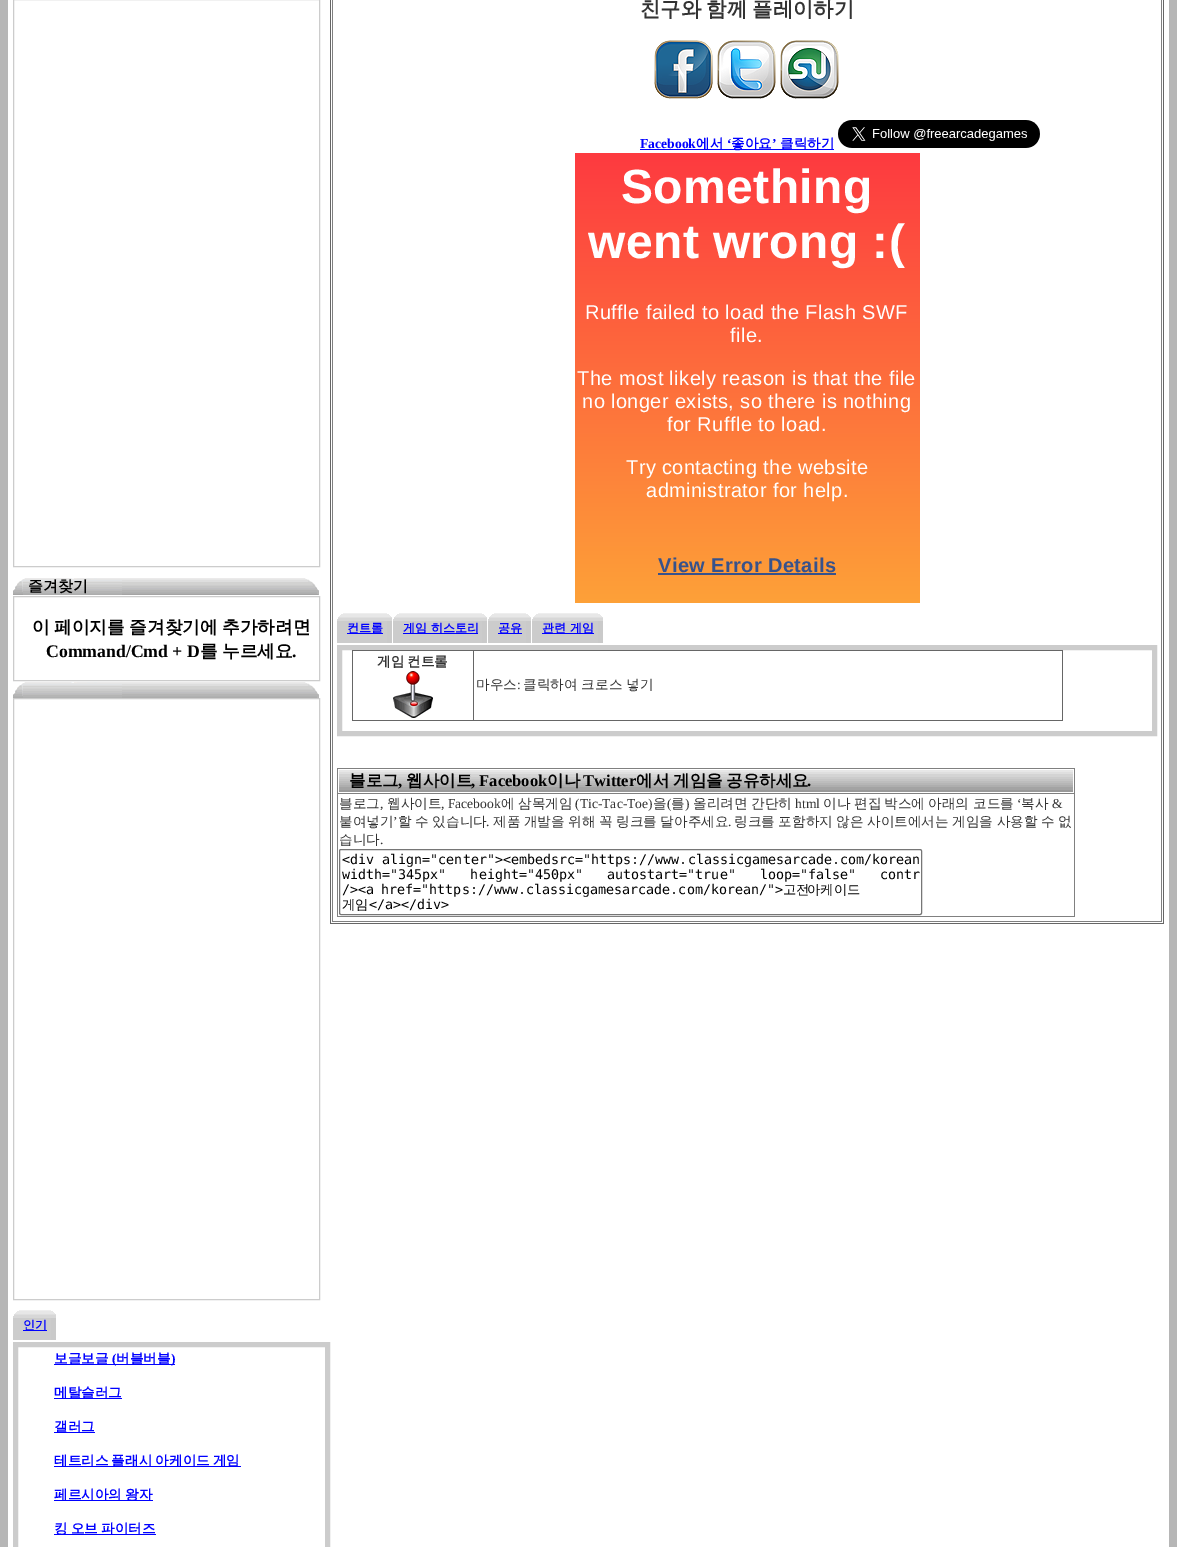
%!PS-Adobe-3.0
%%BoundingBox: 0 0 1177 1547
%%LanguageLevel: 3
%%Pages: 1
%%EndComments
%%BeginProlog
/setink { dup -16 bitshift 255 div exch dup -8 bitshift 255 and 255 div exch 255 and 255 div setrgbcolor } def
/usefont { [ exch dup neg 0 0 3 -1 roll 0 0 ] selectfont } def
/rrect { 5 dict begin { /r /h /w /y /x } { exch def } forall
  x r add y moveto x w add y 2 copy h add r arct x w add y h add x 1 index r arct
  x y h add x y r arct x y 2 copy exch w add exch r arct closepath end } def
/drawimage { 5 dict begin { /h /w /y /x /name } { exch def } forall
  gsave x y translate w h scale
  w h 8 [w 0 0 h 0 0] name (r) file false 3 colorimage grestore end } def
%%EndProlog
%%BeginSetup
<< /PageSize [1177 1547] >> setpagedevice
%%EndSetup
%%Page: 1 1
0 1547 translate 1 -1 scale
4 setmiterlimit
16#B6B6B6 setink
0 0 1177 1547 rectfill
[
    [8 0 1161 1547 16#FFFFFF]
    [1163 0 1 924 16#666666]
    [330 923 834 1 16#666666]
    [330 0 1 924 16#666666]
    [1161 0 1 922 16#808080]
    [332 921 830 1 16#808080]
    [332 0 1 922 16#808080]
] { aload pop setink rectfill } forall
/WenQuanYiZenHei-Bold 20.4 usefont
16#333333 setink
640 16 moveto -1 0 32 (친구와 함께 플레이하기) widthshow
(img1.raw) 654 40 59 59 drawimage
(img2.raw) 717 40 59 59 drawimage
(img3.raw) 780 40 59 59 drawimage
/LiberationSerif-Bold 13.6 usefont
16#0000FF setink
640 148 moveto (Facebook) show
640 149 194 1 rectfill
/WenQuanYiZenHei-Bold 13.6 usefont
696 148 moveto (에서) show
/LiberationSerif-Bold 13.6 usefont
727 148 moveto (‘) show
/WenQuanYiZenHei-Bold 13.6 usefont
731 148 moveto (좋아요) show
/LiberationSerif-Bold 13.6 usefont
772 148 moveto (’) show
/WenQuanYiZenHei-Bold 13.6 usefont
780 148 moveto (클릭하기) show
(img4.raw) 838 120 202 28 drawimage
gsave 575 153 moveto 920 153 lineto 920 603 lineto 575 603 lineto closepath clip newpath
<< /ShadingType 2 /ColorSpace /DeviceRGB /Coords [748 153 748 603] /Extend [true true] /Function << /FunctionType 2 /Domain [0 1] /C0 [0.992 0.227 0.251] /C1 [0.992 0.631 0.22] /N 1 >> >> shfill grestore
/LiberationSans-Bold 48 usefont
16#FFFFFF setink
621 203 moveto 0.4 0 (Something) ashow
588 258 moveto 0.4 0 (went wrong :\() ashow
/LiberationSans-Regular 20 usefont
585 319 moveto 0.4 0 (Ruffle failed to load the Flash SWF) ashow
730 342 moveto 0.4 0 (file.) ashow
577 385 moveto 0.4 0 (The most likely reason is that the file) ashow
582 408 moveto 0.4 0 (no longer exists, so there is nothing) ashow
667 431 moveto 0.4 0 (for Ruffle to load.) ashow
626 474 moveto 0.4 0 (Try contacting the website) ashow
646 497 moveto 0.4 0 (administrator for help.) ashow
/LiberationSans-Bold 20 usefont
16#37528C setink
658 572 moveto 0.4 0 (View Error Details) ashow
658 573 178 2 rectfill
(img5.raw) 337 613 50 30 drawimage
(img6.raw) 387 613 6 30 drawimage
16#0000FF setink
347 633 36 1 rectfill
/WenQuanYiZenHei-Bold 12 usefont
347 632 moveto (컨트롤) show
(img7.raw) 393 613 89 30 drawimage
(img6.raw) 482 613 6 30 drawimage
403 633 75 1 rectfill
403 632 moveto (게임 히스토리) show
(img8.raw) 488 613 38 30 drawimage
(img6.raw) 526 613 6 30 drawimage
498 633 24 1 rectfill
498 632 moveto (공유) show
(img9.raw) 532 613 66 30 drawimage
(img6.raw) 598 613 6 30 drawimage
542 633 52 1 rectfill
542 632 moveto (관련 게임) show
16#CCCCCC setink
5 setlinewidth
339.5 647.5 815 86 rectstroke
[
    [352 650 711 1 16#666666]
    [1062 650 1 71 16#666666]
    [352 720 711 1 16#666666]
    [352 650 1 71 16#666666]
] { aload pop setink rectfill } forall
/WenQuanYiZenHei-Bold 13.6 usefont
16#333333 setink
377 666 moveto -1 0 32 (게임 컨트롤) widthshow
(img10.raw) 393 671 40 47 drawimage
16#666666 setink
473 650 1 71 rectfill
/WenQuanYiZenHei-Medium 13.6 usefont
16#333333 setink
476 689 moveto (마우스) show
/LiberationSerif-Regular 13.6 usefont
517 689 moveto (:) show
/WenQuanYiZenHei-Medium 13.6 usefont
523 689 moveto (클릭하여 크로스 넣기) show
[
    [337 768 738 1 16#808080]
    [1074 768 1 149 16#808080]
    [337 916 738 1 16#808080]
    [337 768 1 149 16#808080]
] { aload pop setink rectfill } forall
(img11.raw) 339 770 734 22 drawimage
/WenQuanYiZenHei-Bold 16.5 usefont
16#000000 setink
349 786 moveto (블로그) show
/LiberationSerif-Bold 16.5 usefont
398 786 moveto (,) show
/WenQuanYiZenHei-Bold 16.5 usefont
406 786 moveto (웹사이트) show
/LiberationSerif-Bold 16.5 usefont
471 786 moveto (, Facebook) show
/WenQuanYiZenHei-Bold 16.5 usefont
547 786 moveto (이나) show
/LiberationSerif-Bold 16.5 usefont
583 786 moveto (Twitter) show
/WenQuanYiZenHei-Bold 16.5 usefont
[
    [(에서) 636 786]
    [(게임을) 673 786]
    [(공유하세요) 726 786]
] { aload pop moveto show } forall
/LiberationSerif-Bold 16.5 usefont
807 786 moveto (.) show
16#808080 setink
337 793 738 1 rectfill
/WenQuanYiZenHei-Medium 13.6 usefont
16#333333 setink
339 808 moveto (블로그) show
/LiberationSerif-Regular 13.6 usefont
380 808 moveto (,) show
/WenQuanYiZenHei-Medium 13.6 usefont
387 808 moveto (웹사이트) show
/LiberationSerif-Regular 13.6 usefont
441 808 moveto (, Facebook) show
/WenQuanYiZenHei-Medium 13.6 usefont
501 808 moveto (에) show
518 808 moveto (삼목게임) show
/LiberationSerif-Regular 13.6 usefont
575 808 moveto (\(Tic-Tac-Toe\)) show
/WenQuanYiZenHei-Medium 13.6 usefont
653 808 moveto (을) show
/LiberationSerif-Regular 13.6 usefont
667 808 moveto (\() show
/WenQuanYiZenHei-Medium 13.6 usefont
671 808 moveto (를) show
/LiberationSerif-Regular 13.6 usefont
685 808 moveto (\)) show
/WenQuanYiZenHei-Medium 13.6 usefont
693 808 moveto (올리려면) show
751 808 moveto (간단히) show
/LiberationSerif-Regular 13.6 usefont
795 808 moveto (html) show
/WenQuanYiZenHei-Medium 13.6 usefont
[
    [(이나) 823 808]
    [(편집) 854 808]
    [(박스에) 884 808]
    [(아래의) 928 808]
    [(코드를) 973 808]
] { aload pop moveto show } forall
/LiberationSerif-Regular 13.6 usefont
1017 808 moveto (‘) show
/WenQuanYiZenHei-Medium 13.6 usefont
1021 808 moveto (복사) show
/LiberationSerif-Regular 13.6 usefont
1052 808 moveto (&) show
/WenQuanYiZenHei-Medium 13.6 usefont
339 826 moveto (붙여넣기) show
/LiberationSerif-Regular 13.6 usefont
393 826 moveto (’) show
/WenQuanYiZenHei-Medium 13.6 usefont
398 826 moveto -0.5 0 32 (할 수 있습니다) widthshow
493 826 moveto -0.5 0 32 (제품 개발을 위해 꼭 링크를 달아주세요) widthshow
734 826 moveto -0.5 0 32 (링크를 포함하지 않은 사이트에서는 게임을 사용할 수 없) widthshow
/LiberationSerif-Regular 13.6 usefont
486 826 moveto (.) show
728 826 moveto (.) show
/WenQuanYiZenHei-Medium 13.6 usefont
339 844 moveto (습니다) show
/LiberationSerif-Regular 13.6 usefont
380 844 moveto (.) show
16#767676 setink
1 setlinewidth
339.5 849.5 582 65 1.5 rrect stroke
/DejaVuSansMono-Regular 13.35 usefont
16#000000 setink
342 864 moveto (<div align="center"><embedsrc="https://www.classicgamesarcade.com/korean) show
342 879 moveto 16 0 32 (width="345px" height="450px" autostart="true" loop="false") widthshow
880 879 moveto (contr) show
342 894 moveto -1 0 32 (/><a href="https://www.classicgamesarcade.com/korean/">) widthshow
/WenQuanYiZenHei-Medium 13.35 usefont
[
    [(고전) 783 894]
    [(아케이드) 807 894]
    [(게임) 342 909]
] { aload pop moveto show } forall
/DejaVuSansMono-Regular 13.35 usefont
369 909 moveto (</a></div>) show
16#CCCCCC setink
13.5 -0.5 306 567 rectstroke
(img12.raw) 13 578 306 17 drawimage
/WenQuanYiZenHei-Bold 15 usefont
16#000000 setink
28 591 moveto (즐겨찾기) show
16#CCCCCC setink
13.5 596.5 306 84 rectstroke
/WenQuanYiZenHei-Bold 17.7 usefont
16#000000 setink
32 633 moveto -1 0 32 (이 페이지를 즐겨찾기에 추가하려면) widthshow
/LiberationSerif-Bold 17.7 usefont
46 657 moveto (Command/Cmd + D) show
/WenQuanYiZenHei-Bold 17.7 usefont
200 657 moveto (를) show
222 657 moveto (누르세요) show
/LiberationSerif-Bold 17.7 usefont
292 657 moveto (.) show
(img13.raw) 13 682 306 16 drawimage
16#CCCCCC setink
13.5 698.5 306 601 rectstroke
(img8.raw) 13 1310 38 30 drawimage
(img6.raw) 51 1310 6 30 drawimage
16#0000FF setink
23 1330 24 1 rectfill
/WenQuanYiZenHei-Bold 12 usefont
23 1329 moveto (인기) show
16#CCCCCC setink
5 setlinewidth
15.5 1344.5 312 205 rectstroke
16#0000FF setink
54 1364 121 1 rectfill
/WenQuanYiZenHei-Bold 13.6 usefont
54 1363 moveto (보글보글) show
/LiberationSerif-Bold 13.6 usefont
112 1363 moveto (\() show
/WenQuanYiZenHei-Bold 13.6 usefont
116 1363 moveto (버블버블) show
/LiberationSerif-Bold 13.6 usefont
171 1363 moveto (\)) show
54 1398 68 1 rectfill
/WenQuanYiZenHei-Bold 13.6 usefont
54 1397 moveto (메탈슬러그) show
54 1432 41 1 rectfill
54 1431 moveto (갤러그) show
54 1466 187 1 rectfill
54 1465 moveto -1 0 32 (테트리스 플래시 아케이드 게임) widthshow
54 1500 99 1 rectfill
54 1499 moveto -1 0 32 (페르시아의 왕자) widthshow
54 1534 102 1 rectfill
54 1533 moveto -1 0 32 (킹 오브 파이터즈) widthshow
showpage
%%EOF
